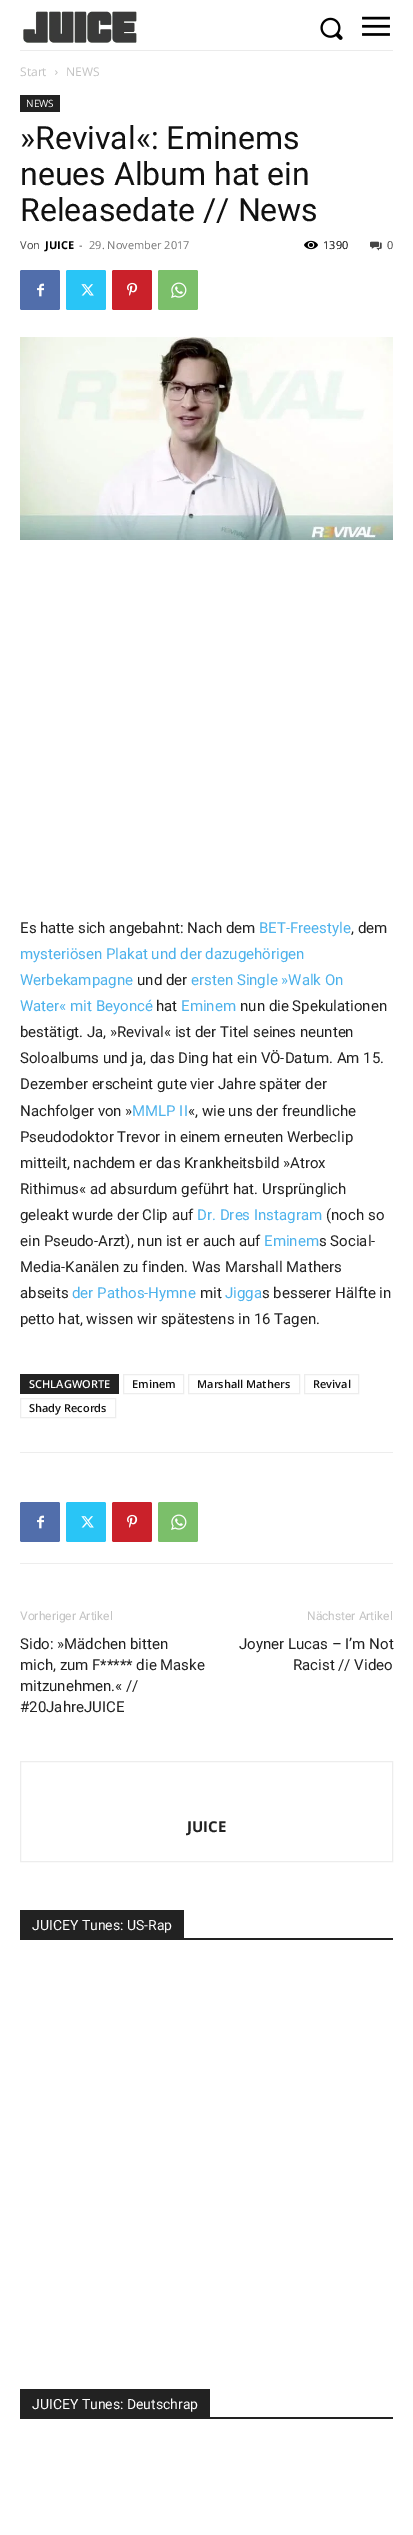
%!PS-Adobe-3.0
%%BoundingBox: 0 0 413 2535
%%LanguageLevel: 3
%%Pages: 1
%%EndComments
%%BeginProlog
/setink { dup -16 bitshift 255 div exch dup -8 bitshift 255 and 255 div exch 255 and 255 div setrgbcolor } def
/usefont { [ exch dup neg 0 0 3 -1 roll 0 0 ] selectfont } def
/rrect { 5 dict begin { /r /h /w /y /x } { exch def } forall
  x r add y moveto x w add y 2 copy h add r arct x w add y h add x 1 index r arct
  x y h add x y r arct x y 2 copy exch w add exch r arct closepath end } def
/drawimage { 5 dict begin { /h /w /y /x /name } { exch def } forall
  gsave x y translate w h scale
  w h 8 [w 0 0 h 0 0] name (r) file false 3 colorimage grestore end } def
%%EndProlog
%%BeginSetup
<< /PageSize [413 2535] >> setpagedevice
%%EndSetup
%%Page: 1 1
0 2535 translate 1 -1 scale
4 setmiterlimit
16#FFFFFF setink
0 0 413 2535 rectfill
(img1.raw) 23 11 114 32 drawimage
(img2.raw) 320 17 23 23 drawimage
(img3.raw) 362 16 28 20 drawimage
16#EBEBEB setink
20 50 373 1 rectfill
/OpenSans-Regular 12 usefont
16#C3C3C3 setink
20 76 moveto (Start) show
(img4.raw) 55 70 3 5 drawimage
66 76 moveto (NEWS) show
16#222222 setink
20 95 40 17 rectfill
/OpenSans-Regular 10 usefont
16#FFFFFF setink
26 107 moveto (NEWS) show
/Roboto-Regular 32 usefont
16#111111 setink
[
    [(»Revival«: Eminems) 20 149]
    [(neues Album hat ein) 20 185]
    [(Releasedate // News) 20 221]
] { aload pop moveto show } forall
/OpenSans-Regular 11 usefont
16#444444 setink
20 249 moveto (Von) show
/OpenSans-Bold 11 usefont
16#000000 setink
45 249 moveto (JUICE) show
/OpenSans-Regular 11 usefont
16#444444 setink
79 249 moveto (-) show
16#767676 setink
89 249 moveto (29. November 2017) show
(img5.raw) 304 240 14 10 drawimage
16#000000 setink
323 249 moveto (1390) show
(img6.raw) 370 241 12 10 drawimage
16#444444 setink
387 249 moveto (0) show
16#516EAB setink
20 270 40 40 2 rrect fill
(img7.raw) 37 283 7 14 drawimage
16#29C5F6 setink
66 270 40 40 2 rrect fill
(img8.raw) 81 284 13 12 drawimage
16#CA212A setink
112 270 40 40 2 rrect fill
(img9.raw) 127 282 11 14 drawimage
16#7BBF6A setink
158 270 40 40 2 rrect fill
(img10.raw) 171 282 16 16 drawimage
(img11.raw) 20 337 373 203 drawimage
/Roboto-Regular 15 usefont
16#222222 setink
20 933 moveto (Es hatte sich angebahnt: Nach dem) show
16#4DB2EC setink
259 933 moveto (BET-Freestyle) show
16#222222 setink
351 933 moveto (, dem) show
16#4DB2EC setink
20 959 moveto (mysteriösen Plakat und der dazugehörigen) show
20 985 moveto (Werbekampagne) show
16#222222 setink
137 985 moveto (und der) show
16#4DB2EC setink
191 985 moveto (ersten Single »Walk On) show
20 1011 moveto (Water« mit Beyoncé) show
16#222222 setink
156 1011 moveto (hat) show
16#4DB2EC setink
181 1011 moveto (Eminem) show
16#222222 setink
[
    [(nun die Spekulationen) 240 1011]
    [(bestätigt. Ja, »Revival« ist der Titel seines neunten) 20 1037]
    [(Soloalbums und ja, das Ding hat ein VÖ-Datum. Am 15.) 20 1063]
    [(Dezember erscheint gute vier Jahre später der) 20 1089]
    [(Nachfolger von ») 20 1116]
] { aload pop moveto show } forall
16#4DB2EC setink
132 1116 moveto (MMLP II) show
16#222222 setink
[
    [(«, wie uns der freundliche) 188 1116]
    [(Pseudodoktor Trevor in einem erneuten Werbeclip) 20 1142]
    [(mitteilt, nachdem er das Krankheitsbild »Atrox) 20 1168]
    [(Rithimus« ad absurdum geführt hat. Ursprünglich) 20 1194]
    [(geleakt wurde der Clip auf) 20 1220]
] { aload pop moveto show } forall
16#4DB2EC setink
197 1220 moveto (Dr. Dres Instagram) show
16#222222 setink
326 1220 moveto (\(noch so) show
20 1246 moveto (ein Pseudo-Arzt\), nun ist er auch auf) show
16#4DB2EC setink
264 1246 moveto (Eminem) show
16#222222 setink
[
    [(s Social-) 319 1246]
    [(Media-Kanälen zu finden. Was Marshall Mathers) 20 1272]
    [(abseits) 20 1298]
] { aload pop moveto show } forall
16#4DB2EC setink
72 1298 moveto (der Pathos-Hymne) show
16#222222 setink
200 1298 moveto (mit) show
16#4DB2EC setink
225 1298 moveto (Jigga) show
16#222222 setink
262 1298 moveto (s besserer Hälfte in) show
20 1324 moveto (petto hat, wissen wir spätestens in 16 Tagen.) show
20 1374 99 20 rectfill
/OpenSans-SemiBold 11 usefont
16#FFFFFF setink
29 1388 moveto (SCHLAGWORTE) show
16#EDEDED setink
123.5 1374.5 60 19 rectstroke
16#111111 setink
132 1388 moveto (Eminem) show
16#EDEDED setink
188.5 1374.5 111 19 rectstroke
16#111111 setink
197 1388 moveto (Marshall Mathers) show
16#EDEDED setink
304.5 1374.5 54 19 rectstroke
16#111111 setink
313 1388 moveto (Revival) show
16#EDEDED setink
20.5 1398.5 95 19 rectstroke
16#111111 setink
29 1412 moveto (Shady Records) show
16#EDEDED setink
20 1452 373 1 rectfill
20 1563 373 1 rectfill
16#516EAB setink
20 1502 40 40 2 rrect fill
(img7.raw) 37 1515 7 14 drawimage
16#29C5F6 setink
66 1502 40 40 2 rrect fill
(img8.raw) 81 1516 13 12 drawimage
16#CA212A setink
112 1502 40 40 2 rrect fill
(img9.raw) 127 1514 11 14 drawimage
16#7BBF6A setink
158 1502 40 40 2 rrect fill
(img10.raw) 171 1514 16 16 drawimage
/Roboto-Regular 12 usefont
16#C3C3C3 setink
20 1620 moveto (Vorheriger Artikel) show
/Roboto-Regular 15 usefont
16#222222 setink
[
    [(Sido: »Mädchen bitten) 20 1649]
    [(mich, zum F***** die Maske) 20 1670]
    [(mitzunehmen.« //) 20 1691]
    [(#20JahreJUICE) 20 1712]
] { aload pop moveto show } forall
/Roboto-Regular 12 usefont
16#C3C3C3 setink
307 1620 moveto (Nächster Artikel) show
/Roboto-Regular 15 usefont
16#222222 setink
239 1649 moveto (Joyner Lucas – I’m Not) show
293 1670 moveto (Racist // Video) show
16#EDEDED setink
20.5 1761.5 372 100 rectstroke
/OpenSans-Bold 15 usefont
16#222222 setink
187 1832 moveto (JUICE) show
20 1938 373 2 rectfill
20 1910 164 28 rectfill
/Roboto-Regular 14 usefont
16#FFFFFF setink
32 1930 moveto (JUICEY Tunes: US-Rap) show
16#222222 setink
20 2417 373 2 rectfill
20 2389 190 28 rectfill
16#FFFFFF setink
32 2409 moveto (JUICEY Tunes: Deutschrap) show
showpage
%%EOF
